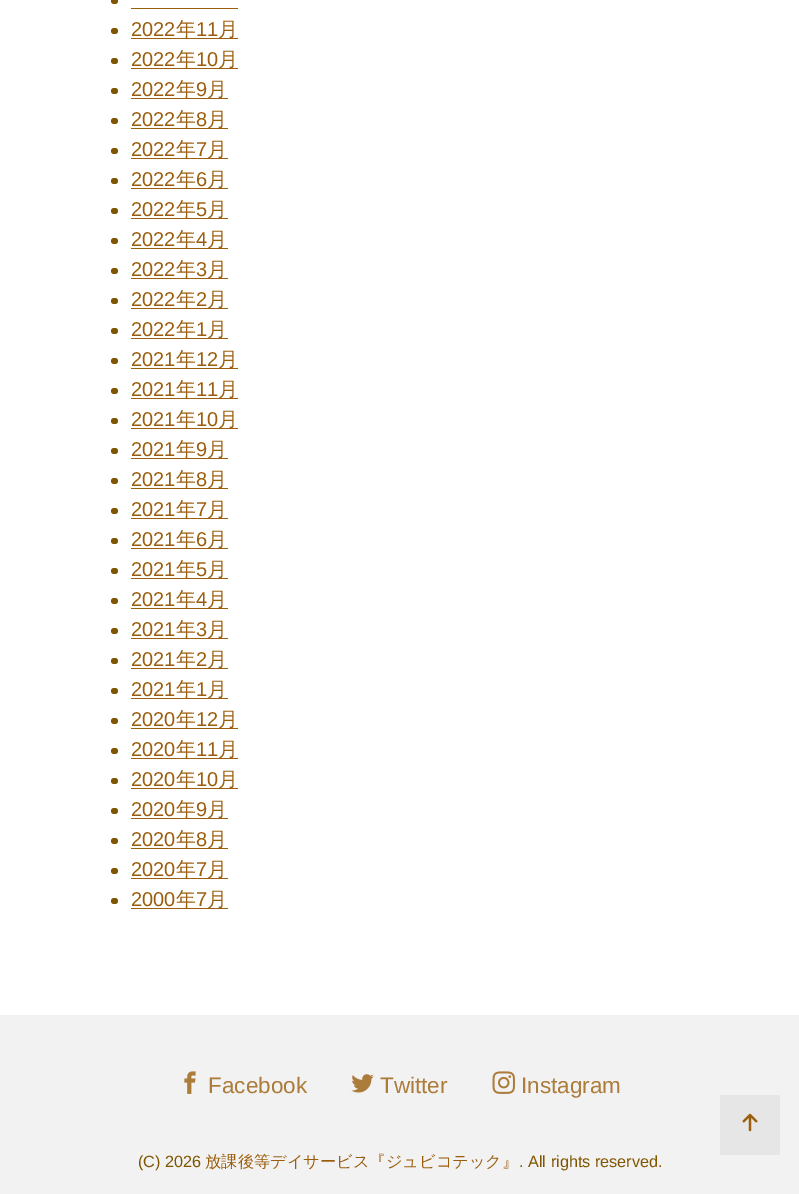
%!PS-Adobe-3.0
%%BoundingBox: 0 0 799 1194
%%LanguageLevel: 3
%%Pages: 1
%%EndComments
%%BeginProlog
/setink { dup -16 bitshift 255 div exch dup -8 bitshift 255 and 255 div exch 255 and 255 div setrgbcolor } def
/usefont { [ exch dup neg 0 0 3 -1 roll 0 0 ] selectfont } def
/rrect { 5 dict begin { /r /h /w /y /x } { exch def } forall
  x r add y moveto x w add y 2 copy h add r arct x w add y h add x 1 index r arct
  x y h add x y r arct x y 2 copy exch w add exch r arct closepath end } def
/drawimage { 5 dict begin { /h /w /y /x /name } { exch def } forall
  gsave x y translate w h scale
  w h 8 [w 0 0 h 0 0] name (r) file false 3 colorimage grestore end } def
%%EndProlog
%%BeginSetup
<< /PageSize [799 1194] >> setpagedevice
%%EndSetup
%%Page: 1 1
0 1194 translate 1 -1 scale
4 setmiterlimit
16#FFFFFF setink
0 0 799 1194 rectfill
16#7F5500 setink
111 -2 7 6 3 rrect fill
16#9B5E0D setink
131 8 107 1 rectfill
16#7F5500 setink
111 28 7 6 3 rrect fill
/LiberationSans-Regular 20 usefont
16#9B5E0D setink
131 36 moveto (2022) show
131 38 107 1 rectfill
/WenQuanYiZenHei-Medium 20 usefont
176 36 moveto (年) show
/LiberationSans-Regular 20 usefont
196 36 moveto (11) show
/WenQuanYiZenHei-Medium 20 usefont
218 36 moveto (月) show
16#7F5500 setink
111 58 7 6 3 rrect fill
/LiberationSans-Regular 20 usefont
16#9B5E0D setink
131 66 moveto (2022) show
131 68 107 1 rectfill
/WenQuanYiZenHei-Medium 20 usefont
176 66 moveto (年) show
/LiberationSans-Regular 20 usefont
196 66 moveto (10) show
/WenQuanYiZenHei-Medium 20 usefont
218 66 moveto (月) show
16#7F5500 setink
111 88 7 6 3 rrect fill
/LiberationSans-Regular 20 usefont
16#9B5E0D setink
131 96 moveto (2022) show
131 98 97 1 rectfill
/WenQuanYiZenHei-Medium 20 usefont
176 96 moveto (年) show
/LiberationSans-Regular 20 usefont
196 96 moveto (9) show
/WenQuanYiZenHei-Medium 20 usefont
207 96 moveto (月) show
16#7F5500 setink
111 118 7 6 3 rrect fill
/LiberationSans-Regular 20 usefont
16#9B5E0D setink
131 126 moveto (2022) show
131 128 97 1 rectfill
/WenQuanYiZenHei-Medium 20 usefont
176 126 moveto (年) show
/LiberationSans-Regular 20 usefont
196 126 moveto (8) show
/WenQuanYiZenHei-Medium 20 usefont
207 126 moveto (月) show
16#7F5500 setink
111 148 7 6 3 rrect fill
/LiberationSans-Regular 20 usefont
16#9B5E0D setink
131 156 moveto (2022) show
131 158 97 1 rectfill
/WenQuanYiZenHei-Medium 20 usefont
176 156 moveto (年) show
/LiberationSans-Regular 20 usefont
196 156 moveto (7) show
/WenQuanYiZenHei-Medium 20 usefont
207 156 moveto (月) show
16#7F5500 setink
111 178 7 6 3 rrect fill
/LiberationSans-Regular 20 usefont
16#9B5E0D setink
131 186 moveto (2022) show
131 188 97 1 rectfill
/WenQuanYiZenHei-Medium 20 usefont
176 186 moveto (年) show
/LiberationSans-Regular 20 usefont
196 186 moveto (6) show
/WenQuanYiZenHei-Medium 20 usefont
207 186 moveto (月) show
16#7F5500 setink
111 208 7 6 3 rrect fill
/LiberationSans-Regular 20 usefont
16#9B5E0D setink
131 216 moveto (2022) show
131 218 97 1 rectfill
/WenQuanYiZenHei-Medium 20 usefont
176 216 moveto (年) show
/LiberationSans-Regular 20 usefont
196 216 moveto (5) show
/WenQuanYiZenHei-Medium 20 usefont
207 216 moveto (月) show
16#7F5500 setink
111 238 7 6 3 rrect fill
/LiberationSans-Regular 20 usefont
16#9B5E0D setink
131 246 moveto (2022) show
131 248 97 1 rectfill
/WenQuanYiZenHei-Medium 20 usefont
176 246 moveto (年) show
/LiberationSans-Regular 20 usefont
196 246 moveto (4) show
/WenQuanYiZenHei-Medium 20 usefont
207 246 moveto (月) show
16#7F5500 setink
111 268 7 6 3 rrect fill
/LiberationSans-Regular 20 usefont
16#9B5E0D setink
131 276 moveto (2022) show
131 278 97 1 rectfill
/WenQuanYiZenHei-Medium 20 usefont
176 276 moveto (年) show
/LiberationSans-Regular 20 usefont
196 276 moveto (3) show
/WenQuanYiZenHei-Medium 20 usefont
207 276 moveto (月) show
16#7F5500 setink
111 298 7 6 3 rrect fill
/LiberationSans-Regular 20 usefont
16#9B5E0D setink
131 306 moveto (2022) show
131 308 97 1 rectfill
/WenQuanYiZenHei-Medium 20 usefont
176 306 moveto (年) show
/LiberationSans-Regular 20 usefont
196 306 moveto (2) show
/WenQuanYiZenHei-Medium 20 usefont
207 306 moveto (月) show
16#7F5500 setink
111 328 7 6 3 rrect fill
/LiberationSans-Regular 20 usefont
16#9B5E0D setink
131 336 moveto (2022) show
131 338 97 1 rectfill
/WenQuanYiZenHei-Medium 20 usefont
176 336 moveto (年) show
/LiberationSans-Regular 20 usefont
196 336 moveto (1) show
/WenQuanYiZenHei-Medium 20 usefont
207 336 moveto (月) show
16#7F5500 setink
111 358 7 6 3 rrect fill
/LiberationSans-Regular 20 usefont
16#9B5E0D setink
131 366 moveto (2021) show
131 368 107 1 rectfill
/WenQuanYiZenHei-Medium 20 usefont
176 366 moveto (年) show
/LiberationSans-Regular 20 usefont
196 366 moveto (12) show
/WenQuanYiZenHei-Medium 20 usefont
218 366 moveto (月) show
16#7F5500 setink
111 388 7 6 3 rrect fill
/LiberationSans-Regular 20 usefont
16#9B5E0D setink
131 396 moveto (2021) show
131 398 107 1 rectfill
/WenQuanYiZenHei-Medium 20 usefont
176 396 moveto (年) show
/LiberationSans-Regular 20 usefont
196 396 moveto (11) show
/WenQuanYiZenHei-Medium 20 usefont
218 396 moveto (月) show
16#7F5500 setink
111 418 7 6 3 rrect fill
/LiberationSans-Regular 20 usefont
16#9B5E0D setink
131 426 moveto (2021) show
131 428 107 1 rectfill
/WenQuanYiZenHei-Medium 20 usefont
176 426 moveto (年) show
/LiberationSans-Regular 20 usefont
196 426 moveto (10) show
/WenQuanYiZenHei-Medium 20 usefont
218 426 moveto (月) show
16#7F5500 setink
111 448 7 6 3 rrect fill
/LiberationSans-Regular 20 usefont
16#9B5E0D setink
131 456 moveto (2021) show
131 458 97 1 rectfill
/WenQuanYiZenHei-Medium 20 usefont
176 456 moveto (年) show
/LiberationSans-Regular 20 usefont
196 456 moveto (9) show
/WenQuanYiZenHei-Medium 20 usefont
207 456 moveto (月) show
16#7F5500 setink
111 478 7 6 3 rrect fill
/LiberationSans-Regular 20 usefont
16#9B5E0D setink
131 486 moveto (2021) show
131 488 97 1 rectfill
/WenQuanYiZenHei-Medium 20 usefont
176 486 moveto (年) show
/LiberationSans-Regular 20 usefont
196 486 moveto (8) show
/WenQuanYiZenHei-Medium 20 usefont
207 486 moveto (月) show
16#7F5500 setink
111 508 7 6 3 rrect fill
/LiberationSans-Regular 20 usefont
16#9B5E0D setink
131 516 moveto (2021) show
131 518 97 1 rectfill
/WenQuanYiZenHei-Medium 20 usefont
176 516 moveto (年) show
/LiberationSans-Regular 20 usefont
196 516 moveto (7) show
/WenQuanYiZenHei-Medium 20 usefont
207 516 moveto (月) show
16#7F5500 setink
111 538 7 6 3 rrect fill
/LiberationSans-Regular 20 usefont
16#9B5E0D setink
131 546 moveto (2021) show
131 548 97 1 rectfill
/WenQuanYiZenHei-Medium 20 usefont
176 546 moveto (年) show
/LiberationSans-Regular 20 usefont
196 546 moveto (6) show
/WenQuanYiZenHei-Medium 20 usefont
207 546 moveto (月) show
16#7F5500 setink
111 568 7 6 3 rrect fill
/LiberationSans-Regular 20 usefont
16#9B5E0D setink
131 576 moveto (2021) show
131 578 97 1 rectfill
/WenQuanYiZenHei-Medium 20 usefont
176 576 moveto (年) show
/LiberationSans-Regular 20 usefont
196 576 moveto (5) show
/WenQuanYiZenHei-Medium 20 usefont
207 576 moveto (月) show
16#7F5500 setink
111 598 7 6 3 rrect fill
/LiberationSans-Regular 20 usefont
16#9B5E0D setink
131 606 moveto (2021) show
131 608 97 1 rectfill
/WenQuanYiZenHei-Medium 20 usefont
176 606 moveto (年) show
/LiberationSans-Regular 20 usefont
196 606 moveto (4) show
/WenQuanYiZenHei-Medium 20 usefont
207 606 moveto (月) show
16#7F5500 setink
111 628 7 6 3 rrect fill
/LiberationSans-Regular 20 usefont
16#9B5E0D setink
131 636 moveto (2021) show
131 638 97 1 rectfill
/WenQuanYiZenHei-Medium 20 usefont
176 636 moveto (年) show
/LiberationSans-Regular 20 usefont
196 636 moveto (3) show
/WenQuanYiZenHei-Medium 20 usefont
207 636 moveto (月) show
16#7F5500 setink
111 658 7 6 3 rrect fill
/LiberationSans-Regular 20 usefont
16#9B5E0D setink
131 666 moveto (2021) show
131 668 97 1 rectfill
/WenQuanYiZenHei-Medium 20 usefont
176 666 moveto (年) show
/LiberationSans-Regular 20 usefont
196 666 moveto (2) show
/WenQuanYiZenHei-Medium 20 usefont
207 666 moveto (月) show
16#7F5500 setink
111 688 7 6 3 rrect fill
/LiberationSans-Regular 20 usefont
16#9B5E0D setink
131 696 moveto (2021) show
131 698 97 1 rectfill
/WenQuanYiZenHei-Medium 20 usefont
176 696 moveto (年) show
/LiberationSans-Regular 20 usefont
196 696 moveto (1) show
/WenQuanYiZenHei-Medium 20 usefont
207 696 moveto (月) show
16#7F5500 setink
111 718 7 6 3 rrect fill
/LiberationSans-Regular 20 usefont
16#9B5E0D setink
131 726 moveto (2020) show
131 728 107 1 rectfill
/WenQuanYiZenHei-Medium 20 usefont
176 726 moveto (年) show
/LiberationSans-Regular 20 usefont
196 726 moveto (12) show
/WenQuanYiZenHei-Medium 20 usefont
218 726 moveto (月) show
16#7F5500 setink
111 748 7 6 3 rrect fill
/LiberationSans-Regular 20 usefont
16#9B5E0D setink
131 756 moveto (2020) show
131 758 107 1 rectfill
/WenQuanYiZenHei-Medium 20 usefont
176 756 moveto (年) show
/LiberationSans-Regular 20 usefont
196 756 moveto (11) show
/WenQuanYiZenHei-Medium 20 usefont
218 756 moveto (月) show
16#7F5500 setink
111 778 7 6 3 rrect fill
/LiberationSans-Regular 20 usefont
16#9B5E0D setink
131 786 moveto (2020) show
131 788 107 1 rectfill
/WenQuanYiZenHei-Medium 20 usefont
176 786 moveto (年) show
/LiberationSans-Regular 20 usefont
196 786 moveto (10) show
/WenQuanYiZenHei-Medium 20 usefont
218 786 moveto (月) show
16#7F5500 setink
111 808 7 6 3 rrect fill
/LiberationSans-Regular 20 usefont
16#9B5E0D setink
131 816 moveto (2020) show
131 818 97 1 rectfill
/WenQuanYiZenHei-Medium 20 usefont
176 816 moveto (年) show
/LiberationSans-Regular 20 usefont
196 816 moveto (9) show
/WenQuanYiZenHei-Medium 20 usefont
207 816 moveto (月) show
16#7F5500 setink
111 838 7 6 3 rrect fill
/LiberationSans-Regular 20 usefont
16#9B5E0D setink
131 846 moveto (2020) show
131 848 97 1 rectfill
/WenQuanYiZenHei-Medium 20 usefont
176 846 moveto (年) show
/LiberationSans-Regular 20 usefont
196 846 moveto (8) show
/WenQuanYiZenHei-Medium 20 usefont
207 846 moveto (月) show
16#7F5500 setink
111 868 7 6 3 rrect fill
/LiberationSans-Regular 20 usefont
16#9B5E0D setink
131 876 moveto (2020) show
131 878 97 1 rectfill
/WenQuanYiZenHei-Medium 20 usefont
176 876 moveto (年) show
/LiberationSans-Regular 20 usefont
196 876 moveto (7) show
/WenQuanYiZenHei-Medium 20 usefont
207 876 moveto (月) show
16#7F5500 setink
111 898 7 6 3 rrect fill
/LiberationSans-Regular 20 usefont
16#9B5E0D setink
131 906 moveto (2000) show
131 908 97 1 rectfill
/WenQuanYiZenHei-Medium 20 usefont
176 906 moveto (年) show
/LiberationSans-Regular 20 usefont
196 906 moveto (7) show
/WenQuanYiZenHei-Medium 20 usefont
207 906 moveto (月) show
16#F2F2F2 setink
0 1015 799 179 rectfill
(img1.raw) 184 1071 12 23 drawimage
/LiberationSans-Regular 22.5 usefont
16#AC7C3B setink
208 1093 moveto (Facebook) show
(img2.raw) 351 1074 23 19 drawimage
380 1093 moveto (Twitter) show
(img3.raw) 492 1071 23 23 drawimage
521 1093 moveto (Instagram) show
/LiberationSans-Regular 16.25 usefont
16#7F5500 setink
138 1167 moveto (\(C\) 2026) show
/WenQuanYiZenHei-Medium 16.25 usefont
16#9B5E0D setink
205 1167 moveto (放課後等デイサービス『ジュビコテック』) show
/LiberationSans-Regular 16.25 usefont
16#7F5500 setink
519 1167 moveto (. All rights reserved.) show
16#E6E6E6 setink
720 1095 60 60 rectfill
(img4.raw) 742 1113 16 19 drawimage
showpage
%%EOF
